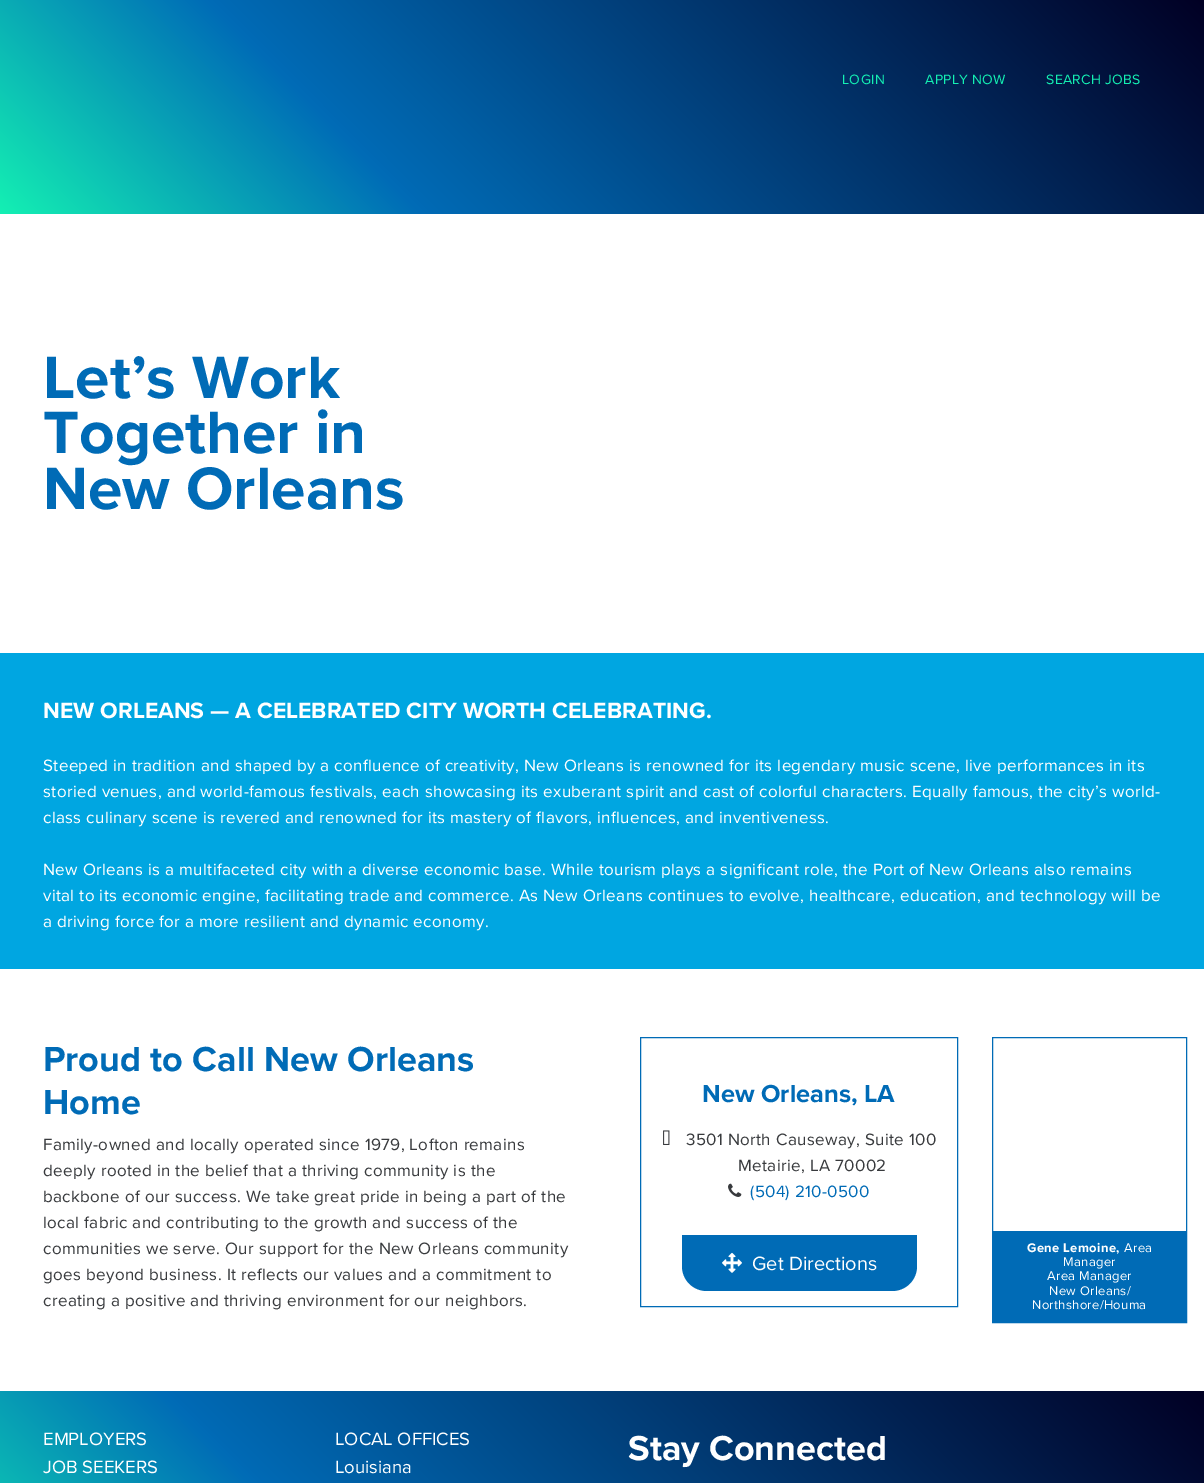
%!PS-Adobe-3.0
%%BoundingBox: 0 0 1204 1483
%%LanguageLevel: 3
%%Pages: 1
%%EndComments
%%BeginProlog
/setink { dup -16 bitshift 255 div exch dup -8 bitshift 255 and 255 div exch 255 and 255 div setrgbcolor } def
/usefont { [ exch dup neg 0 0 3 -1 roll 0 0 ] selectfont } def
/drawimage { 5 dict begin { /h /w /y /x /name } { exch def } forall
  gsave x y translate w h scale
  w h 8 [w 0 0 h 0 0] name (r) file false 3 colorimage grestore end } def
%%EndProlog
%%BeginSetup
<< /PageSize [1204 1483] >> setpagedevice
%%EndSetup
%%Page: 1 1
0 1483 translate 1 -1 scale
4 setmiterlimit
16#FFFFFF setink
0 0 1204 1483 rectfill
gsave 0 0 moveto 1204 0 lineto 1204 214 lineto 0 214 lineto closepath clip newpath
<< /ShadingType 2 /ColorSpace /DeviceRGB /Coords [957 -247 247 462] /Extend [true true] /Function << /FunctionType 3 /Domain [0 1] /Functions [<< /FunctionType 2 /Domain [0 1] /C0 [0.008 0 0.141] /C1 [0 0.42 0.714] /N 1 >> << /FunctionType 2 /Domain [0 1] /C0 [0 0.42 0.714] /C1 [0.078 0.941 0.702] /N 1 >>] /Bounds [0.7] /Encode [0 1 0 1] >> >> shfill grestore
/ProximaNova-Regular 14 usefont
16#14F0B3 setink
842 84 moveto 0.34 0 (LOGIN) ashow
925 84 moveto 0.34 0 (APPLY NOW) ashow
1046 84 moveto 0.34 0 (SEARCH JOBS) ashow
/ProximaNova-Bold 62 usefont
16#006BB6 setink
[
    [(Let’s Work) 43 398]
    [(Together in) 43 453]
    [(New Orleans) 43 509]
] { aload pop moveto show } forall
16#00A6E1 setink
0 653 1204 316 rectfill
/ProximaNova-Bold 23 usefont
16#FFFFFF setink
43 718 moveto (NEW ORLEANS — A CELEBRATED CITY WORTH CELEBRATING.) show
/ProximaNova-Regular 17 usefont
43 771 moveto 0.34 0 (Steeped in tradition and shaped by a confluence of creativity, New Orleans is renowned for its legendary music scene, live performances in its) ashow
43 797 moveto 0.34 0 (storied venues, and world-famous festivals, each showcasing its exuberant spirit and cast of colorful characters. Equally famous, the city’s world-) ashow
43 823 moveto 0.34 0 (class culinary scene is revered and renowned for its mastery of flavors, influences, and inventiveness.) ashow
43 875 moveto 0.34 0 (New Orleans is a multifaceted city with a diverse economic base. While tourism plays a significant role, the Port of New Orleans also remains) ashow
43 901 moveto 0.34 0 (vital to its economic engine, facilitating trade and commerce. As New Orleans continues to evolve, healthcare, education, and technology will be) ashow
43 927 moveto 0.34 0 (a driving force for a more resilient and dynamic economy.) ashow
/ProximaNova-Bold 36 usefont
16#006BB6 setink
43 1071 moveto (Proud to Call New Orleans) show
43 1114 moveto (Home) show
/ProximaNova-Regular 17 usefont
16#383A3D setink
43 1150 moveto 0.34 0 (Family-owned and locally operated since 1979, Lofton remains) ashow
43 1176 moveto 0.34 0 (deeply rooted in the belief that a thriving community is the) ashow
43 1202 moveto 0.34 0 (backbone of our success. We take great pride in being a part of the) ashow
43 1228 moveto 0.34 0 (local fabric and contributing to the growth and success of the) ashow
43 1254 moveto 0.34 0 (communities we serve. Our support for the New Orleans community) ashow
43 1280 moveto 0.34 0 (goes beyond business. It reflects our values and a commitment to) ashow
43 1306 moveto 0.34 0 (creating a positive and thriving environment for our neighbors.) ashow
16#006BB6 setink
640.5 1037.5 317 269 rectstroke
/ProximaNova-Bold 25.5 usefont
702 1102 moveto (New Orleans, LA) show
(img1.raw) 663 1130 7 15 drawimage
/ProximaNova-Regular 17 usefont
16#383A3D setink
686 1145 moveto 0.34 0 (3501 North Causeway, Suite 100) ashow
738 1171 moveto 0.34 0 (Metairie, LA 70002) ashow
(img2.raw) 728 1183 14 14 drawimage
16#006BB6 setink
750 1197 moveto 0.34 0 (\(504\) 210-0500) ashow
682 1235 moveto 917 1235 lineto 917 1266 lineto 917 1280 906 1291 892 1291 curveto 707 1291 lineto 693 1291 682 1280 682 1266 curveto closepath fill
(img3.raw) 722 1252 20 21 drawimage
/ProximaNova-Regular 20 usefont
16#FFFFFF setink
752 1270 moveto (Get Directions) show
16#006BB6 setink
992.5 1037.5 194 285 rectstroke
993 1231 193 91 rectfill
/ProximaNova-Bold 13 usefont
16#FFFFFF setink
1027 1252 moveto 0.34 0 (Gene Lemoine,) ashow
/ProximaNova-Regular 13 usefont
1124 1252 moveto 0.34 0 (Area) ashow
1063 1266 moveto 0.34 0 (Manager) ashow
1047 1280 moveto 0.34 0 (Area Manager) ashow
1049 1295 moveto 0.34 0 (New Orleans/) ashow
1032 1309 moveto 0.34 0 (Northshore/Houma) ashow
gsave 0 1391 moveto 1204 1391 lineto 1204 1483 lineto 0 1483 lineto closepath clip newpath
<< /ShadingType 2 /ColorSpace /DeviceRGB /Coords [974 1161 230 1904] /Extend [true true] /Function << /FunctionType 3 /Domain [0 1] /Functions [<< /FunctionType 2 /Domain [0 1] /C0 [0.008 0 0.141] /C1 [0 0.42 0.714] /N 1 >> << /FunctionType 2 /Domain [0 1] /C0 [0 0.42 0.714] /C1 [0.078 0.941 0.702] /N 1 >>] /Bounds [0.7] /Encode [0 1 0 1] >> >> shfill grestore
/ProximaNova-Regular 18.5 usefont
[
    [(EMPLOYERS) 43 1445]
    [(JOB SEEKERS) 43 1473]
    [(LOCAL OFFICES) 335 1445]
    [(Louisiana) 335 1473]
] { aload pop moveto show } forall
/ProximaNova-Bold 36 usefont
628 1460 moveto (Stay Connected) show
showpage
%%EOF
